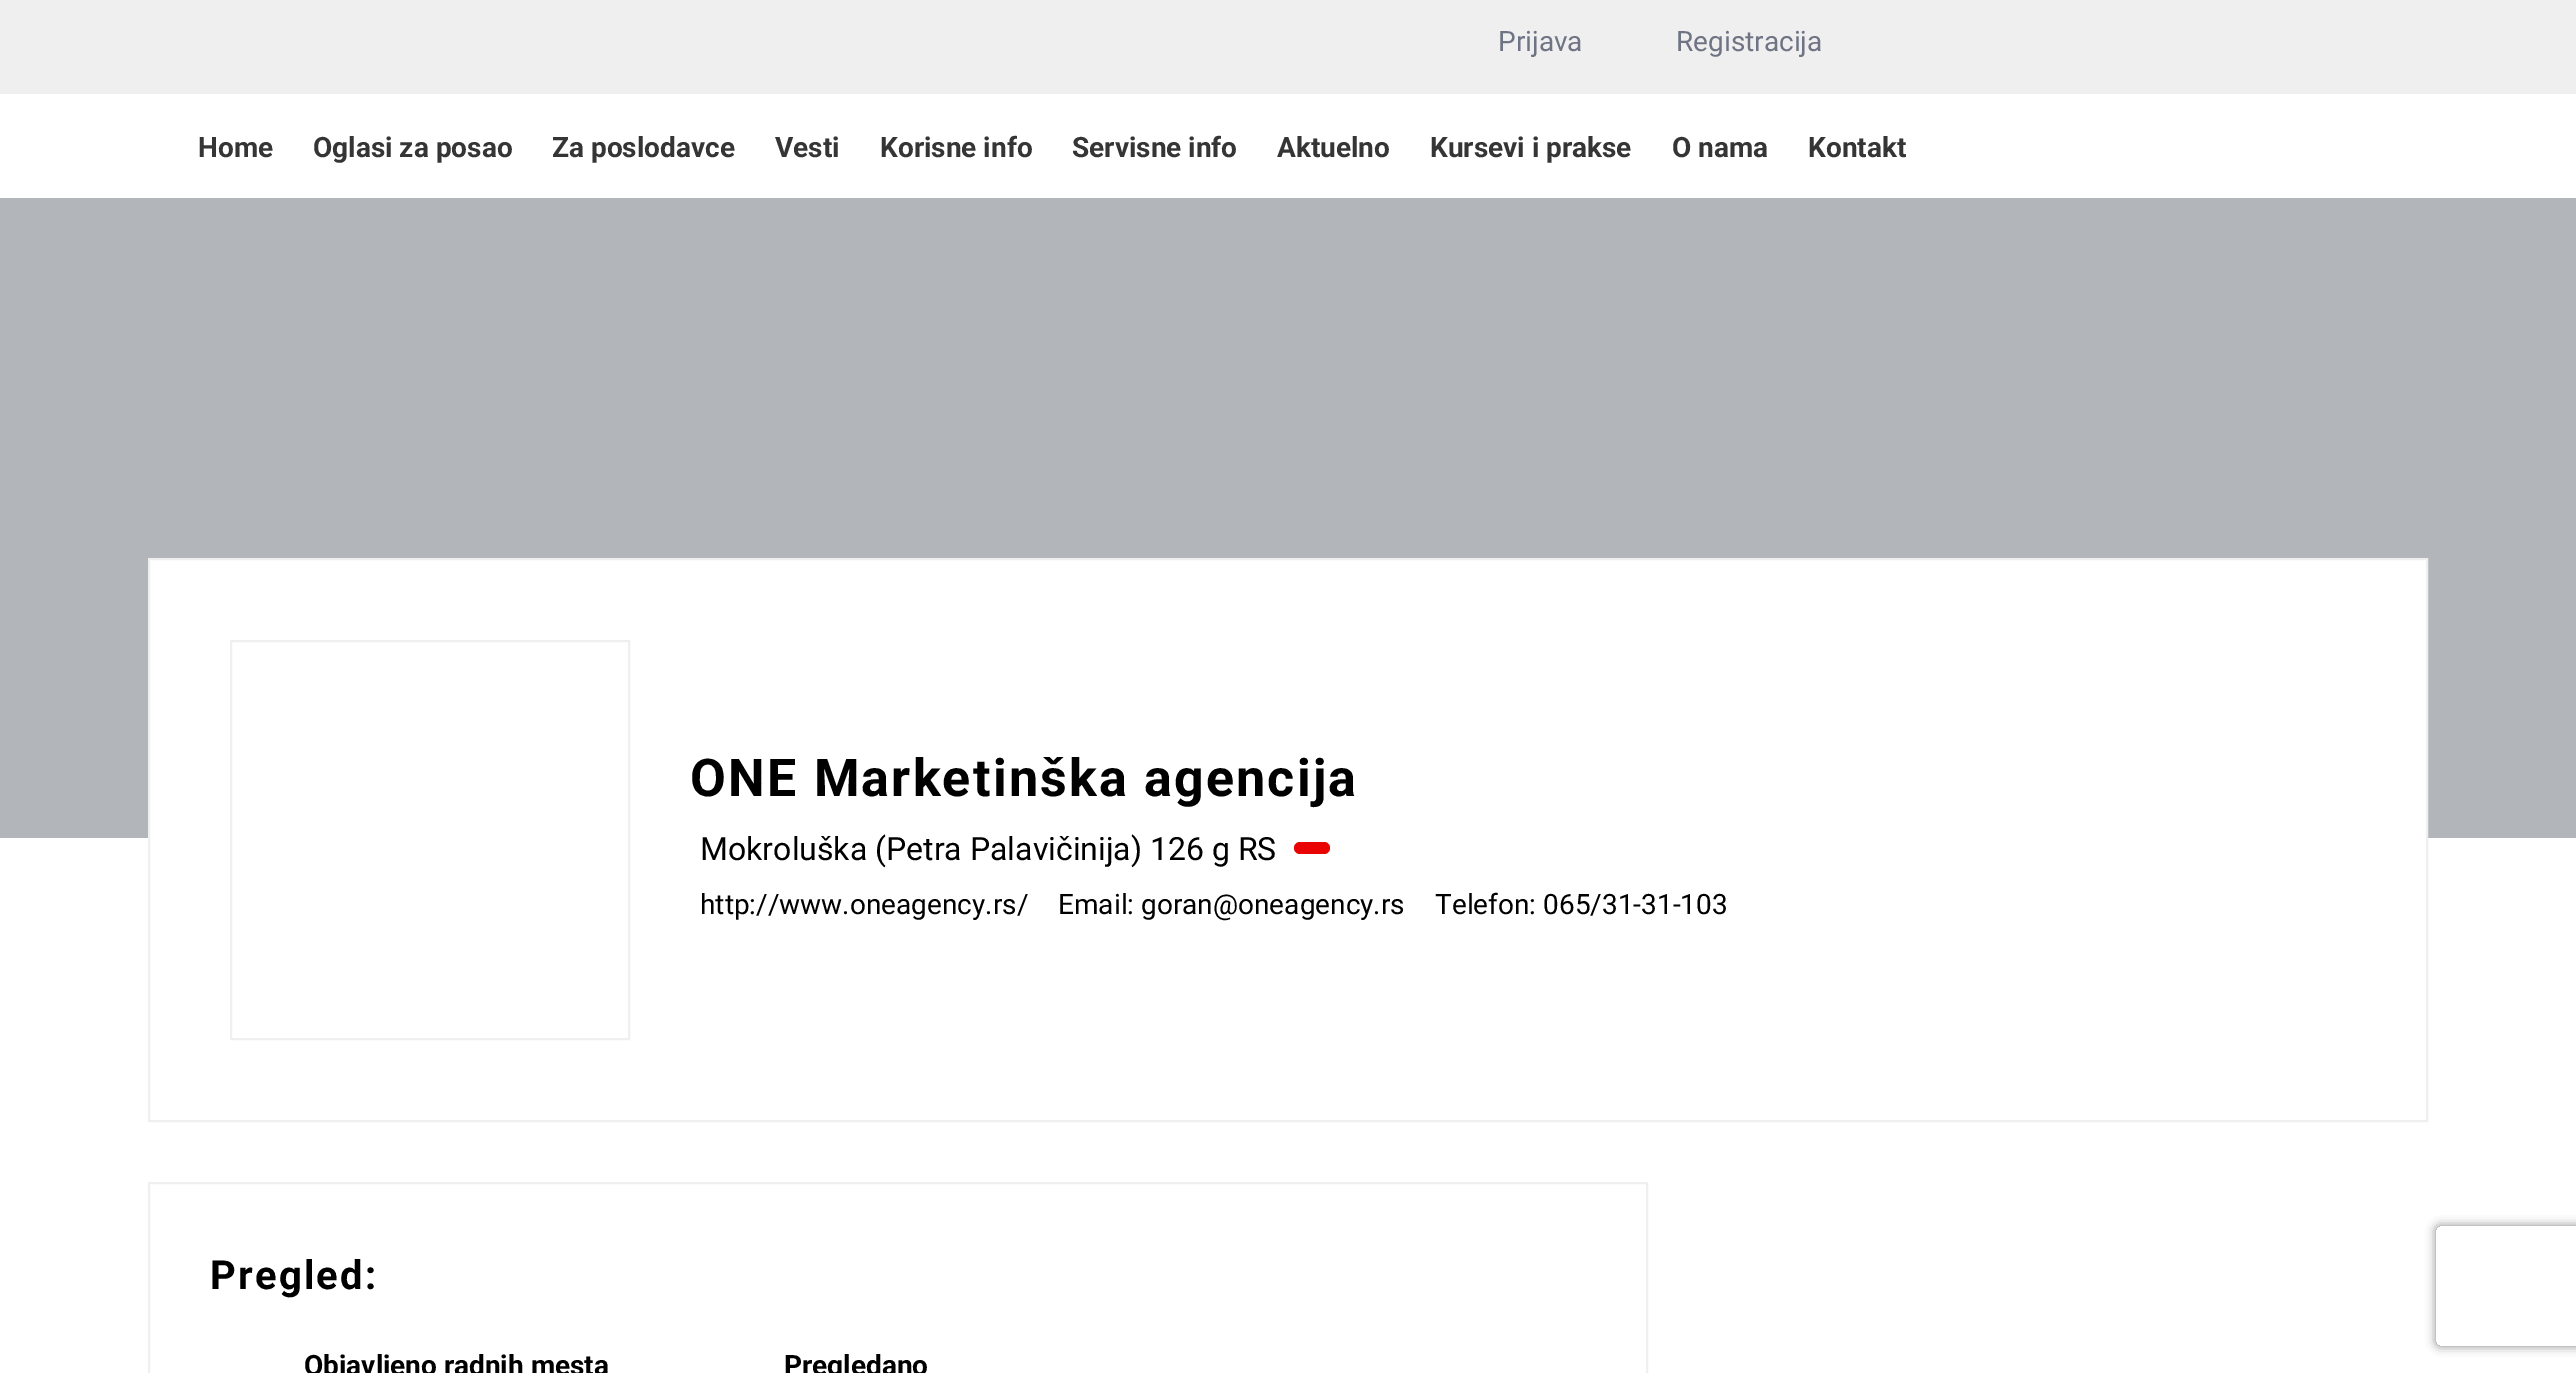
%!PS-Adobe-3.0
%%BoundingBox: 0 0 2576 1373
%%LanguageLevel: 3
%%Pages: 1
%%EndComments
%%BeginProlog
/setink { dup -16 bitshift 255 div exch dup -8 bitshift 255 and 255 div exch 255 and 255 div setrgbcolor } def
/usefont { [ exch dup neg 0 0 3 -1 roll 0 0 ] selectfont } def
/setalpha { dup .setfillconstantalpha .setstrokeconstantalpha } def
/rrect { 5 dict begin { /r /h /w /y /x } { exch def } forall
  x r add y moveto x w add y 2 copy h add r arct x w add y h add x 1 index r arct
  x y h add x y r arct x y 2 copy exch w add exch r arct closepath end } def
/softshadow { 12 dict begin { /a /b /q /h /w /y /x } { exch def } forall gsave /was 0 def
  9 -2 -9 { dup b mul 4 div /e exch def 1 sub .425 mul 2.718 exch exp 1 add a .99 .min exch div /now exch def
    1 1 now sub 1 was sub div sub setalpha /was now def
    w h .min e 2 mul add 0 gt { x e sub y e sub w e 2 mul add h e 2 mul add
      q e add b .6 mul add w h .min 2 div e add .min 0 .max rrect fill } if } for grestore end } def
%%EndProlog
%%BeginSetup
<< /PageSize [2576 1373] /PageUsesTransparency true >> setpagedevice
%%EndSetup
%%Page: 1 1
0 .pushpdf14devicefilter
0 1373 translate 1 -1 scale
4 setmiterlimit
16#FFFFFF setink
0 0 2576 1373 rectfill
16#EFEFEF setink
0 0 2576 94 rectfill
/Roboto-Regular 28 usefont
16#6F7484 setink
1498 51 moveto (Prijava) show
1676 51 moveto (Registracija) show
/Roboto-Bold 28 usefont
16#353535 setink
[
    [(Home) 198 157]
    [(Oglasi za posao) 313 157]
    [(Za poslodavce) 552 157]
    [(Vesti) 775 157]
    [(Korisne info) 880 157]
    [(Servisne info) 1072 157]
    [(Aktuelno) 1277 157]
    [(Kursevi i prakse) 1430 157]
    [(O nama) 1672 157]
    [(Kontakt) 1808 157]
] { aload pop moveto show } forall
16#B2B5B9 setink
0 198 2576 640 rectfill
16#FFFFFF setink
150 560 2276 278 rectfill
16#EFEFEF setink
2 setlinewidth
149 559 2278 562 rectstroke
231 641 398 398 rectstroke
/Roboto-Bold 52 usefont
16#000000 setink
690 796 moveto 2.2 0 (ONE Marketinška agencija) ashow
/Roboto-Regular 32 usefont
700 860 moveto (Mokroluška \(Petra Palavičinija\) 126 g RS) show
16#EA0303 setink
1294 842 36 12 6 rrect fill
/Roboto-Regular 28 usefont
16#000000 setink
[
    [(http://www.oneagency.rs/) 700 914]
    [(Email: goran@oneagency.rs) 1058 914]
    [(Telefon: 065/31-31-103) 1435 914]
] { aload pop moveto show } forall
16#EFEFEF setink
149 1183 1498 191 rectstroke
/Roboto-Bold 40 usefont
16#000000 setink
210 1289 moveto 2.2 0 (Pregled:) ashow
/Roboto-Bold 28 usefont
304 1375 moveto (Objavljeno radnih mesta) show
784 1375 moveto (Pregledano) show
gsave
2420 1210 moveto 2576 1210 lineto 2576 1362 lineto 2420 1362 lineto closepath 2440 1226 moveto 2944 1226 lineto 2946 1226 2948 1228 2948 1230 curveto 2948 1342 lineto 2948 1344 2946 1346 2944 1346 curveto 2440 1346 lineto 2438 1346 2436 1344 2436 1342 curveto 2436 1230 lineto 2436 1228 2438 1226 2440 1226 curveto closepath eoclip newpath
16#808080 setink
2436 1226 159 120 4 5 1 softshadow
grestore
.poppdf14devicefilter showpage
%%EOF
